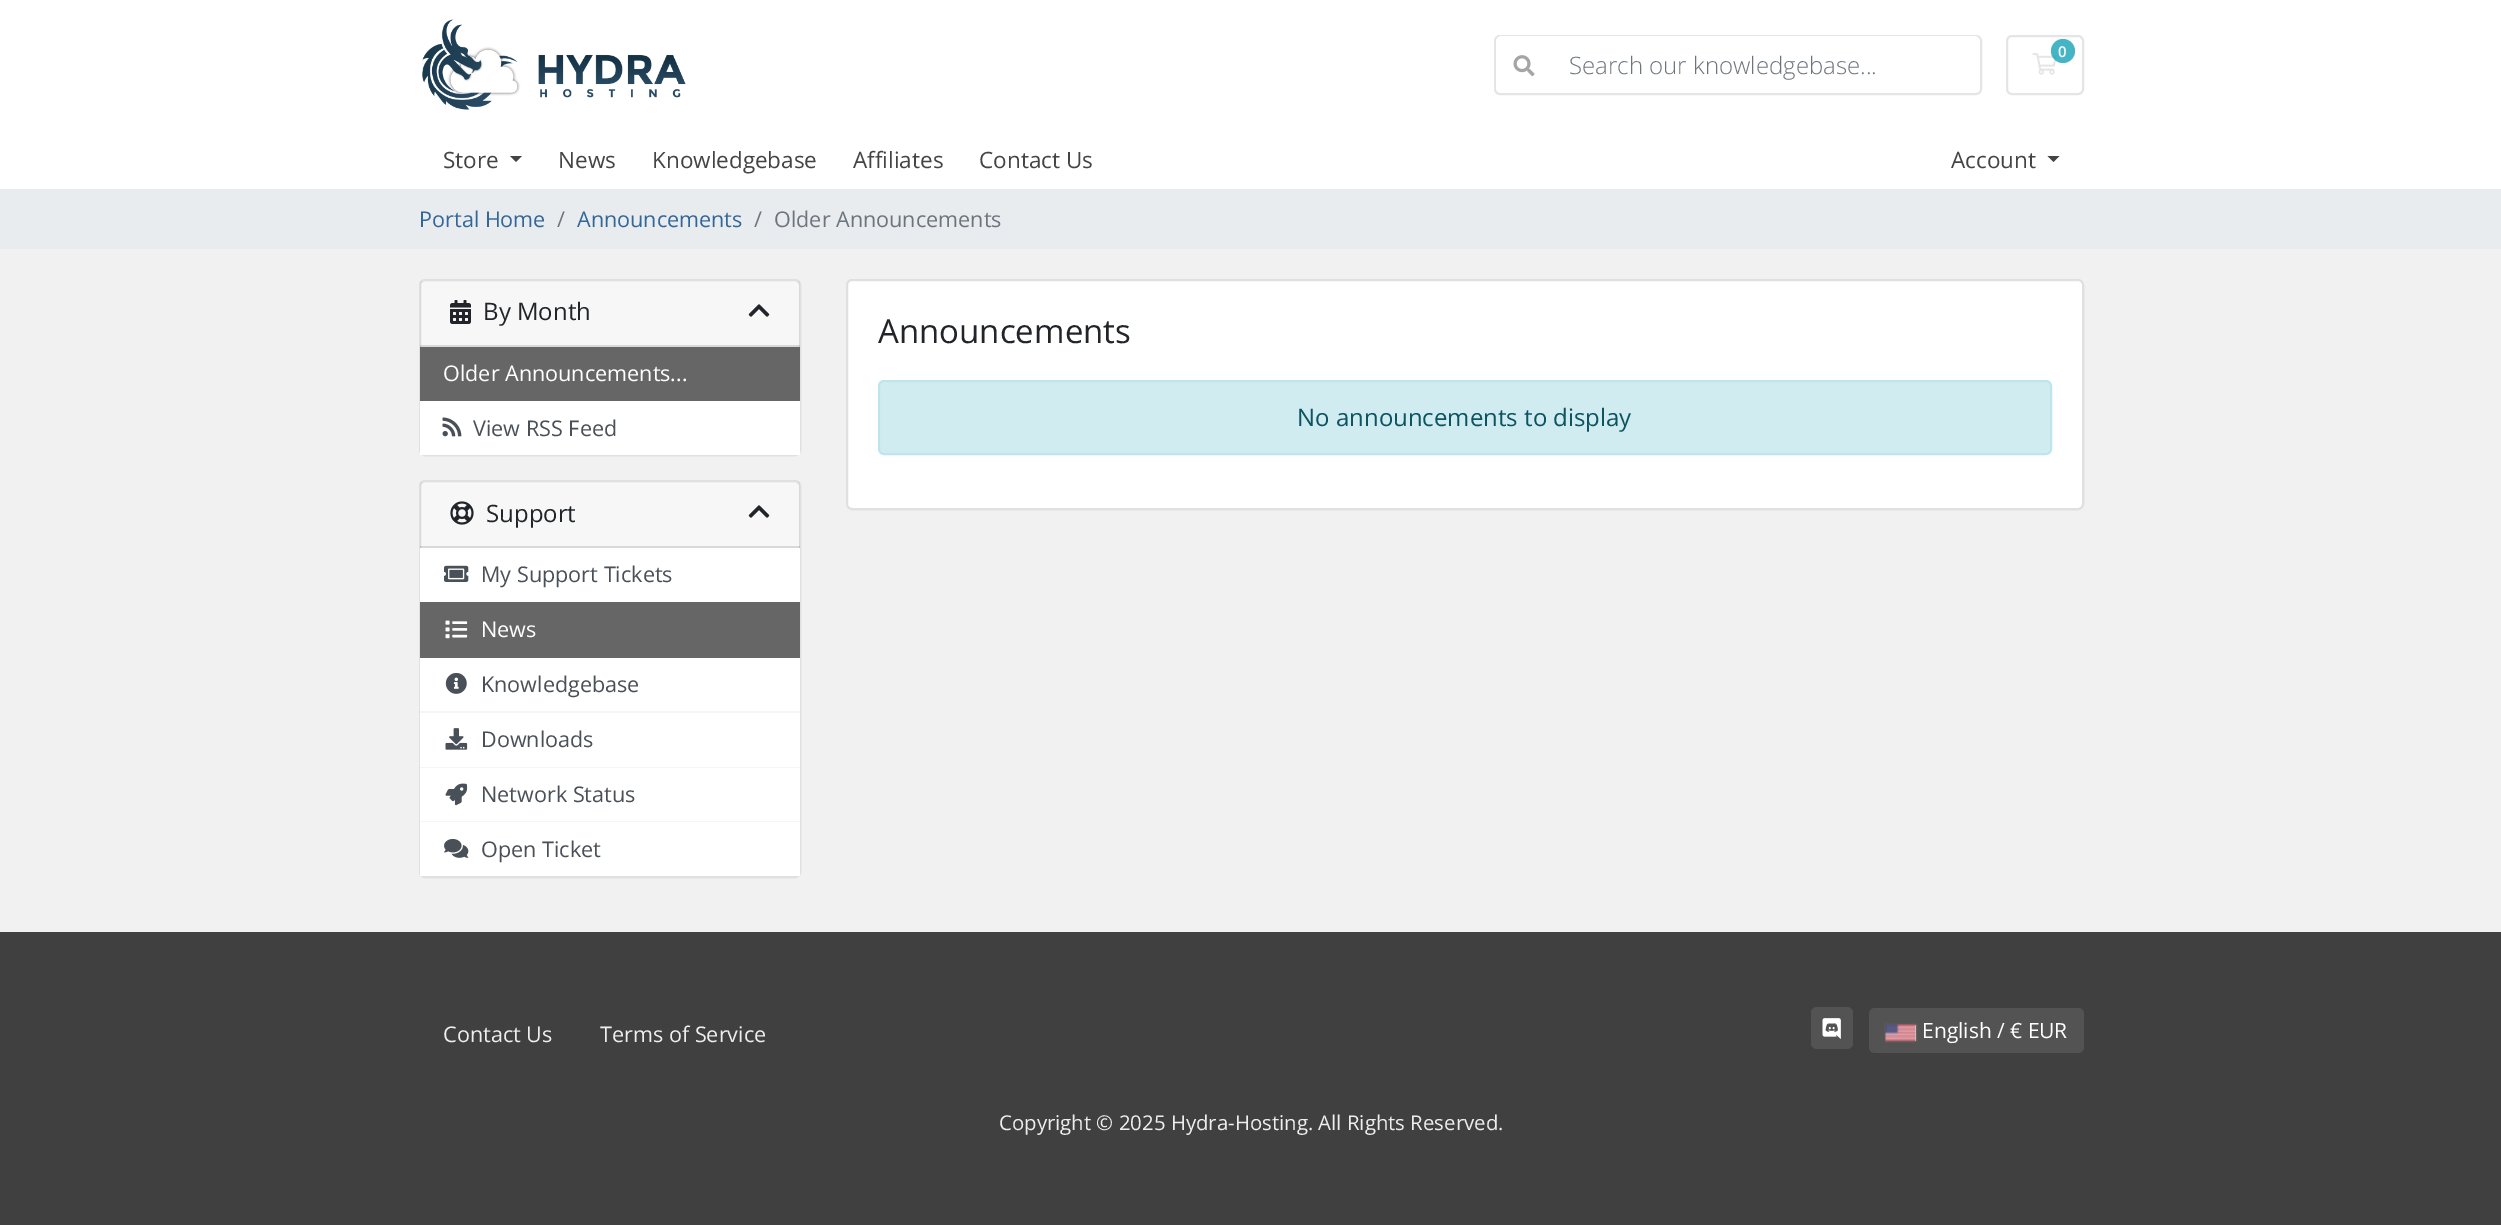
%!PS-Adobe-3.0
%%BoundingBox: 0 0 2501 1225
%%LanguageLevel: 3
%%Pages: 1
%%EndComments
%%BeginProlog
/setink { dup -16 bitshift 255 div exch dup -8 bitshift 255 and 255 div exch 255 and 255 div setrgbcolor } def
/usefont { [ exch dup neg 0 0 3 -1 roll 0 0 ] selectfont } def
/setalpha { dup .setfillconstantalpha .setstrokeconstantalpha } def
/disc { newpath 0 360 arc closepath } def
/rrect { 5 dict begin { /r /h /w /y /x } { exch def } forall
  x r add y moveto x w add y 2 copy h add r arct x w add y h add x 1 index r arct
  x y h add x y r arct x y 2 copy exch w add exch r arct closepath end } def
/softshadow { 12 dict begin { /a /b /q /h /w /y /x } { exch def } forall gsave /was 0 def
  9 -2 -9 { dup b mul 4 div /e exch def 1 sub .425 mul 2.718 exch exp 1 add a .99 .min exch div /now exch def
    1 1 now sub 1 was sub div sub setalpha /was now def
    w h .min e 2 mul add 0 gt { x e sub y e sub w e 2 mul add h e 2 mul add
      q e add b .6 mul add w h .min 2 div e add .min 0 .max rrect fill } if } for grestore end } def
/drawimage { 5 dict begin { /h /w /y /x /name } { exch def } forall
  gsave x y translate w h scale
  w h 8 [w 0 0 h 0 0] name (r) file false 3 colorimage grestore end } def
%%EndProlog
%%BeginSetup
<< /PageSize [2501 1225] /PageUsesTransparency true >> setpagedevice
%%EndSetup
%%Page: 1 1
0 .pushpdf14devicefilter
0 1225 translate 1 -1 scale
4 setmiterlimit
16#F1F1F1 setink
0 0 2501 1225 rectfill
16#FFFFFF setink
0 0 2501 189 rectfill
(img1.raw) 422 19 264 91 drawimage
16#E5E5E5 setink
2 setlinewidth
2007 36 76 58 5 rrect stroke
(img2.raw) 2032 53 25 22 drawimage
0.8 setalpha
16#17A2B8 setink
2063 51 12 disc fill
/OpenSans-SemiBold 15 usefont
1 setalpha
16#FFFFFF setink
2058 57 moveto (0) show
16#E5E5E5 setink
1495 36 486 58 5 rrect stroke
16#FFFFFF setink
1551 36 moveto 1974 36 lineto 1977.5 36 1980 38.5 1980 42 curveto 1980 87 lineto 1980 90.5 1977.5 93 1974 93 curveto 1551 93 lineto closepath fill
1502 36 moveto 1553 36 lineto 1553 93 lineto 1502 93 lineto 1498.5 93 1496 90.5 1496 87 curveto 1496 42 lineto 1496 38.5 1498.5 36 1502 36 curveto closepath fill
(img3.raw) 1513 55 22 22 drawimage
/OpenSans-Light 24 usefont
16#6C757D setink
1569 74 moveto (Search our knowledgebase...) show
/OpenSans-Regular 22.5 usefont
16#444444 setink
443 168 moveto (Store) show
510 156 moveto 522 156 lineto 516 162 lineto closepath fill
[
    [(News) 558 168]
    [(Knowledgebase) 652 168]
    [(Affiliates) 853 168]
    [(Contact Us) 979 168]
    [(Account) 1951 168]
] { aload pop moveto show } forall
2047.5 156 moveto 2059.5 156 lineto 2053.5 162 lineto closepath fill
16#E9ECEF setink
0 189 2501 60 rectfill
/OpenSans-Regular 21.6 usefont
16#336699 setink
419 227 moveto (Portal Home) show
16#6C757D setink
557 227 moveto (/) show
16#336699 setink
577 227 moveto (Announcements) show
16#6C757D setink
754 227 moveto (/) show
774 227 moveto (Older Announcements) show
16#FFFFFF setink
419 279 382 177 6 rrect fill
0.12 setalpha
16#000000 setink
420 280 380 175 5 rrect stroke
0.03 setalpha
420 281 380 66 rectfill
0.12 setalpha
420 345 380 2 rectfill
1 setalpha
(img4.raw) 450 300 21 24 drawimage
/OpenSans-Regular 24 usefont
16#212529 setink
483 320 moveto (By Month) show
(img5.raw) 748 304 22 13 drawimage
16#666666 setink
420 347 380 54 rectfill
/OpenSans-Regular 21.6 usefont
16#FFFFFF setink
443 381 moveto (Older Announcements...) show
420 401 380 54 rectfill
(img6.raw) 442 417 20 20 drawimage
16#495057 setink
473 436 moveto (View RSS Feed) show
16#FFFFFF setink
419 480 382 398 6 rrect fill
0.12 setalpha
16#000000 setink
420 481 380 396 5 rrect stroke
0.03 setalpha
420 482 380 66 rectfill
0.12 setalpha
420 546 380 2 rectfill
1 setalpha
(img7.raw) 450 501 24 24 drawimage
/OpenSans-Regular 24 usefont
16#212529 setink
486 522 moveto (Support) show
(img5.raw) 748 505 22 13 drawimage
16#FFFFFF setink
420 548 380 54 rectfill
(img8.raw) 444 565 25 17 drawimage
/OpenSans-Regular 21.6 usefont
16#495057 setink
481 582 moveto (My Support Tickets) show
16#666666 setink
420 602 380 56 rectfill
(img9.raw) 445 620 23 19 drawimage
16#FFFFFF setink
481 637 moveto (News) show
420 658 380 53 rectfill
16#F5F5F5 setink
420 711 380 2 rectfill
(img10.raw) 445 672 22 22 drawimage
16#495057 setink
481 692 moveto (Knowledgebase) show
16#FFFFFF setink
420 713 380 54 rectfill
16#F5F5F5 setink
420 767 380 1 rectfill
(img11.raw) 445 728 23 22 drawimage
16#495057 setink
481 747 moveto (Downloads) show
16#FFFFFF setink
420 768 380 53 rectfill
16#F5F5F5 setink
420 821 380 1 rectfill
(img12.raw) 445 783 23 23 drawimage
16#495057 setink
481 802 moveto (Network Status) show
16#FFFFFF setink
420 822 380 54 rectfill
(img13.raw) 444 838 25 20 drawimage
16#495057 setink
481 857 moveto (Open Ticket) show
16#FFFFFF setink
846 279 1238 231 6 rrect fill
0.12 setalpha
16#000000 setink
847 280 1236 229 5 rrect stroke
/OpenSans-Regular 33 usefont
1 setalpha
16#212529 setink
878 343 moveto (Announcements) show
16#D1ECF1 setink
879 381 1172 73 5 rrect gsave fill grestore
16#BEE5EB setink
stroke
/OpenSans-Regular 24 usefont
16#0C5460 setink
1297 426 moveto (No announcements to display) show
16#404040 setink
0 932 2501 293 rectfill
/OpenSans-Regular 21.6 usefont
16#EEEEEE setink
443 1042 moveto (Contact Us) show
600 1042 moveto (Terms of Service) show
16#535353 setink
1811 1007 42 42 6 rrect fill
(img14.raw) 1822 1018 19 21 drawimage
1869 1008 215 45 6 rrect fill
16#888888 setink
1886 1025 30 16 0 1 1 softshadow
16#DBDBDB setink
1915 1025 1 16 rectfill
(img15.raw) 1885 1024 31 17 drawimage
/OpenSans-Regular 21 usefont
16#FFFFFF setink
1922 1038 moveto (English / € EUR) show
/OpenSans-Regular 20.4 usefont
16#EEEEEE setink
999 1130 moveto (Copyright © 2025 Hydra-Hosting. All Rights Reserved.) show
.poppdf14devicefilter showpage
%%EOF
